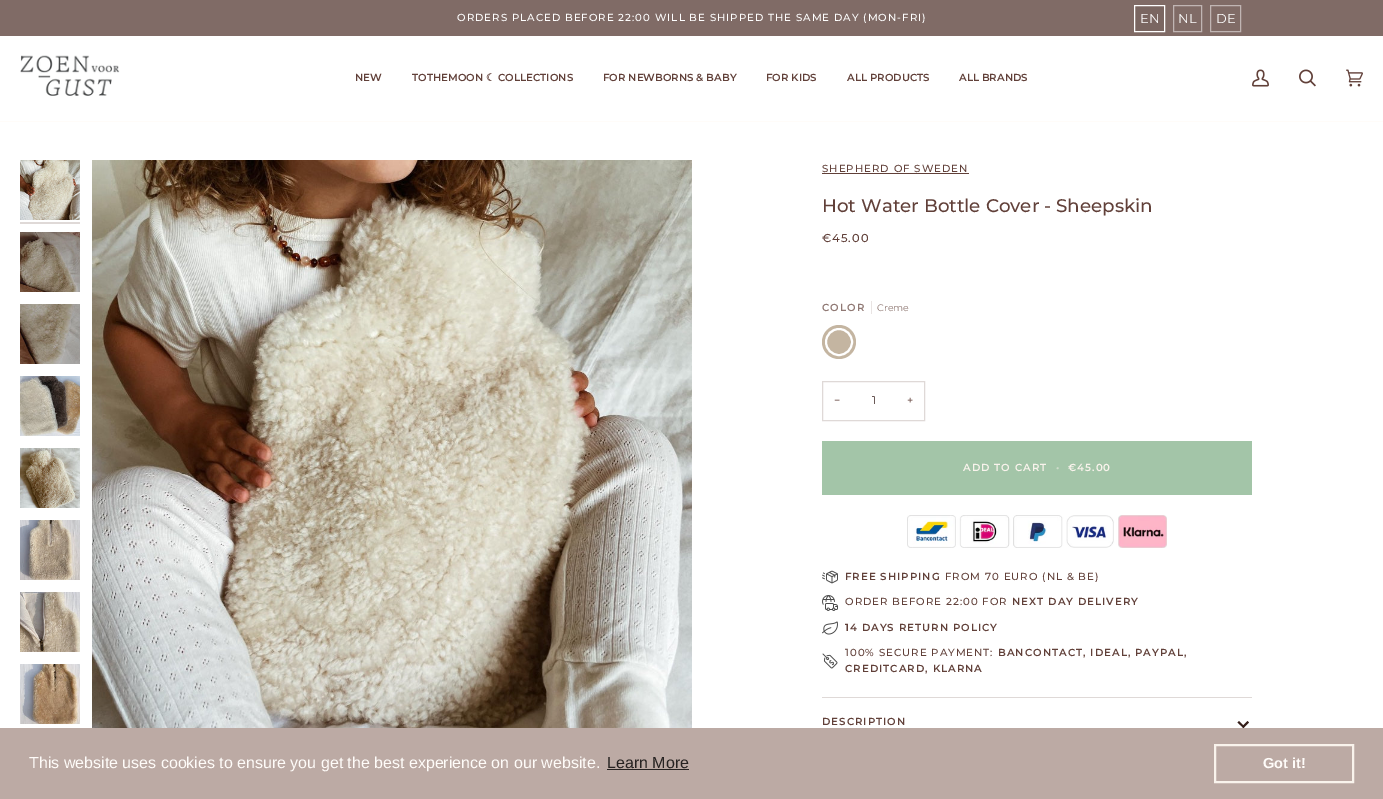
%!PS-Adobe-3.0
%%BoundingBox: 0 0 1383 799
%%LanguageLevel: 3
%%Pages: 1
%%EndComments
%%BeginProlog
/setink { dup -16 bitshift 255 div exch dup -8 bitshift 255 and 255 div exch 255 and 255 div setrgbcolor } def
/usefont { [ exch dup neg 0 0 3 -1 roll 0 0 ] selectfont } def
/disc { newpath 0 360 arc closepath } def
/drawimage { 5 dict begin { /h /w /y /x /name } { exch def } forall
  gsave x y translate w h scale
  w h 8 [w 0 0 h 0 0] name (r) file false 3 colorimage grestore end } def
%%EndProlog
%%BeginSetup
<< /PageSize [1383 799] >> setpagedevice
%%EndSetup
%%Page: 1 1
0 799 translate 1 -1 scale
4 setmiterlimit
16#FFFFFF setink
0 0 1383 799 rectfill
16#806B66 setink
0 0 1383 36 rectfill
/Montserrat-Medium 10.2 usefont
16#FFFFFF setink
457 21 moveto 1 0 (ORDERS PLACED BEFORE 22:00 WILL BE SHIPPED THE SAME DAY \(MON-FRI\)) ashow
16#7A6661 setink
1134.5 5.5 moveto 1164.5 5.5 lineto 1164.5 31.5 lineto 1134.5 31.5 lineto closepath gsave fill grestore
16#FFFFFF setink
stroke
/Montserrat-Thin 13 usefont
1140 23 moveto (EN) show
16#C0B5B3 setink
1173.5 5.5 28 26 rectstroke
16#FFFFFF setink
1178 23 moveto (NL) show
16#C0B5B3 setink
1210.5 5.5 30 26 rectstroke
16#FFFFFF setink
1216 23 moveto (DE) show
16#FFFCF9 setink
0 121 1383 1 rectfill
(img1.raw) 20 55 100 41 drawimage
/Montserrat-SemiBold 10.2 usefont
16#614039 setink
355 81 moveto (NEW) show
412 81 moveto (TOTHEMOON) show
/DejaVuSans-Bold 10.2 usefont
486 81 moveto (☾) show
/Montserrat-SemiBold 10.2 usefont
[
    [(COLLECTIONS) 498 81]
    [(FOR NEWBORNS & BABY) 603 81]
    [(FOR KIDS) 766 81]
    [(ALL PRODUCTS) 847 81]
    [(ALL BRANDS) 959 81]
] { aload pop moveto show } forall
(img2.raw) 1252 69 17 18 drawimage
(img3.raw) 1299 69 17 18 drawimage
(img4.raw) 1346 69 17 18 drawimage
(img5.raw) 20 160 60 60 drawimage
16#DFD9D7 setink
20 222 60 2 rectfill
(img6.raw) 20 232 60 60 drawimage
(img7.raw) 20 304 60 60 drawimage
(img8.raw) 20 376 60 60 drawimage
(img9.raw) 20 448 60 60 drawimage
(img10.raw) 20 520 60 60 drawimage
(img11.raw) 20 592 60 60 drawimage
(img12.raw) 20 664 60 60 drawimage
(img13.raw) 92 160 600 568 drawimage
/Montserrat-Medium 10.2 usefont
16#614039 setink
822 172 moveto 1 0 (SHEPHERD OF SWEDEN) ashow
822 173 147 1 rectfill
/Montserrat-Medium 18.3 usefont
822 212 moveto (Hot Water Bottle Cover - Sheepskin) show
/Montserrat-Medium 11.5 usefont
822 242 moveto 1 0 (€45.00) ashow
/Montserrat-SemiBold 10.2 usefont
16#907974 setink
822 311 moveto 1 0 (COLOR) ashow
16#E9E4E3 setink
871 301 1 13 rectfill
/Montserrat-Thin 9.5 usefont
16#907974 setink
877 311 moveto (Creme) show
16#C4B5A1 setink
839 342 17 disc fill
16#FFFFFF setink
2 setlinewidth
839 342 13 disc stroke
16#DFD9D7 setink
1 setlinewidth
822.5 381.5 102 39 rectstroke
/Montserrat-Thin 11 usefont
16#614039 setink
834 404 moveto (−) show
16#351E19 setink
872 404 moveto (1) show
16#614039 setink
907 404 moveto (+) show
16#A3C5A8 setink
822 441 430 54 rectfill
/Montserrat-SemiBold 10.2 usefont
16#F9F3EC setink
963 471 moveto 1 0 (ADD TO CART) ashow
16#CEDCCA setink
1056 471 moveto 1 0 (•) ashow
16#F9F3EC setink
1068 471 moveto 1 0 (€45.00) ashow
(img14.raw) 907 515 260 33 drawimage
(img15.raw) 822 570 16 14 drawimage
16#614039 setink
845 580 moveto 1 0 (FREE SHIPPING) ashow
/Montserrat-Medium 10.2 usefont
945 580 moveto 1 0 (FROM 70 EURO \(NL & BE\)) ashow
(img16.raw) 822 595 16 16 drawimage
845 605 moveto 1 0 (ORDER BEFORE 22:00 FOR) ashow
/Montserrat-SemiBold 10.2 usefont
1012 605 moveto 1 0 (NEXT DAY DELIVERY) ashow
(img17.raw) 822 621 16 14 drawimage
845 631 moveto 1 0 (14 DAYS RETURN POLICY) ashow
(img18.raw) 822 653 16 16 drawimage
/Montserrat-Medium 10.2 usefont
845 656 moveto 1 0 (100% SECURE PAYMENT:) ashow
/Montserrat-SemiBold 10.2 usefont
998 656 moveto 1 0 (BANCONTACT, IDEAL, PAYPAL,) ashow
845 672 moveto 1 0 (CREDITCARD, KLARNA) ashow
16#DFD9D7 setink
822 697 430 1 rectfill
16#614039 setink
822 725 moveto 1 0 (DESCRIPTION) ashow
16#351E19 setink
1242 726.5 moveto 1247.5 721 lineto 1249 722.5 lineto 1243.5 728 lineto closepath fill
1237.5 722.5 moveto 1239 721 lineto 1244.5 726.5 lineto 1243.5 728 lineto closepath fill
16#BCAAA4 setink
0 728 1383 71 rectfill
/LiberationSans-Regular 16 usefont
16#FFFCF9 setink
29 768 moveto (This website uses cookies to ensure you get the best experience on our website.) show
16#262221 setink
607 768 moveto (Learn More) show
607 769 82 1 rectfill
16#F9F3EC setink
2 setlinewidth
1215 745 138 37 rectstroke
/LiberationSans-Bold 14.5 usefont
16#FFFCF9 setink
1263 768 moveto (Got it!) show
showpage
%%EOF
